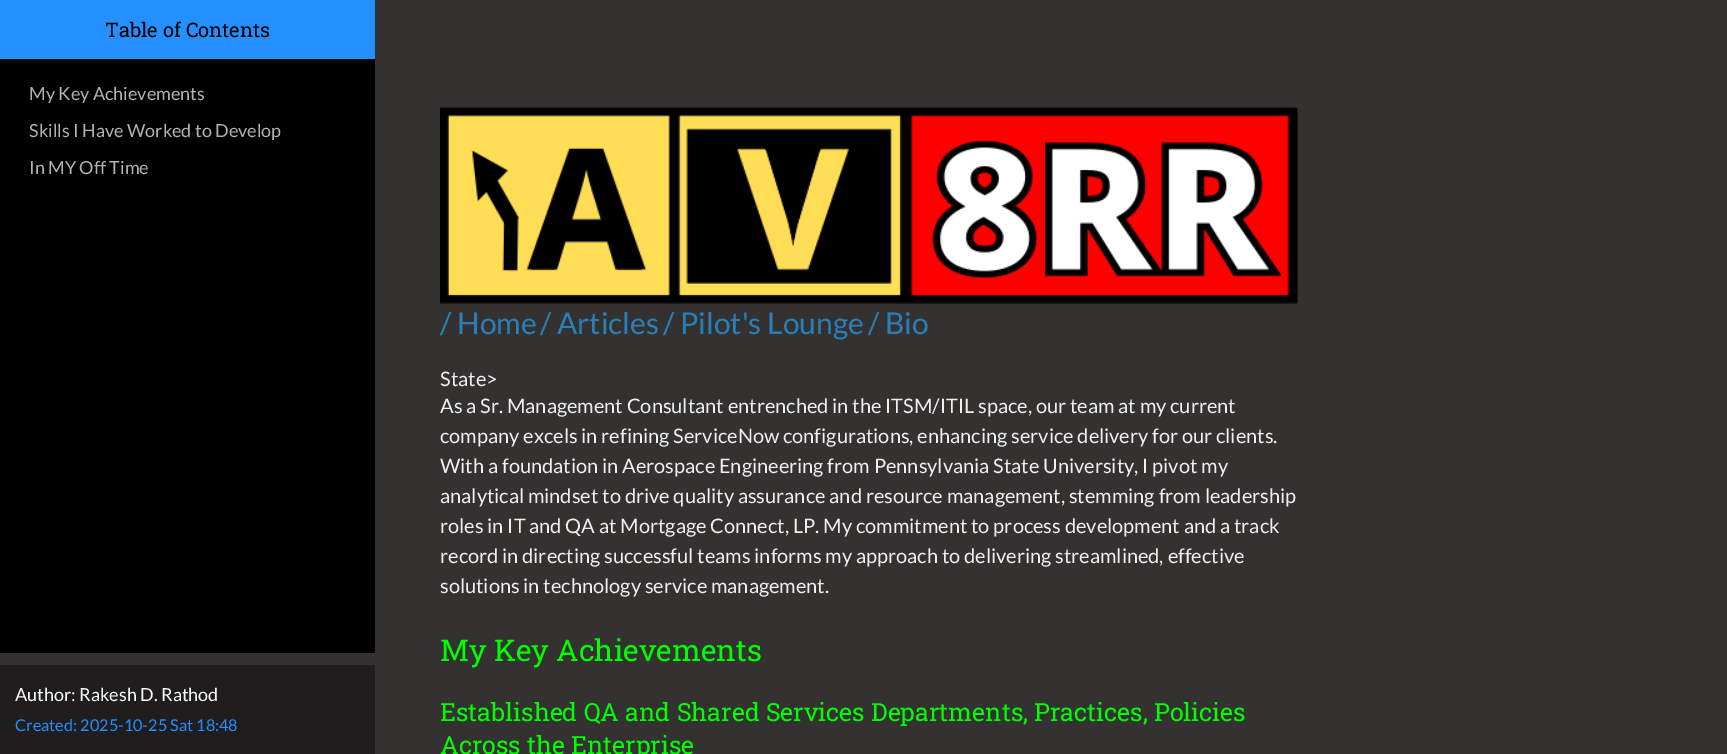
%!PS-Adobe-3.0
%%BoundingBox: 0 0 1727 754
%%LanguageLevel: 3
%%Pages: 1
%%EndComments
%%BeginProlog
/setink { dup -16 bitshift 255 div exch dup -8 bitshift 255 and 255 div exch 255 and 255 div setrgbcolor } def
/usefont { [ exch dup neg 0 0 3 -1 roll 0 0 ] selectfont } def
/drawimage { 5 dict begin { /h /w /y /x /name } { exch def } forall
  gsave x y translate w h scale
  w h 8 [w 0 0 h 0 0] name (r) file false 3 colorimage grestore end } def
%%EndProlog
%%BeginSetup
<< /PageSize [1727 754] >> setpagedevice
%%EndSetup
%%Page: 1 1
0 754 translate 1 -1 scale
4 setmiterlimit
16#343131 setink
0 0 1727 754 rectfill
16#000000 setink
0 59 375 594 rectfill
16#248FFF setink
0 0 375 59 rectfill
/RobotoSlab-Regular 20 usefont
16#000000 setink
105 37 moveto (Table of Contents) show
/Lato-Regular 18 usefont
16#B3B3B3 setink
[
    [(My Key Achievements) 29 100]
    [(Skills I Have Worked to Develop) 29 137]
    [(In MY Off Time) 29 174]
] { aload pop moveto show } forall
(img1.raw) 440 107 858 197 drawimage
/Lato-Regular 30 usefont
16#2980B9 setink
[
    [(/ Home) 440 334]
    [(/ Articles) 540 334]
    [(/ Pilot's Lounge) 663 334]
    [(/ Bio) 868 334]
] { aload pop moveto show } forall
/Lato-Regular 20 usefont
16#F0F0F0 setink
[
    [(State>) 440 386]
    [(As a Sr. Management Consultant entrenched in the ITSM/ITIL space, our team at my current) 440 413]
    [(company excels in refining ServiceNow configurations, enhancing service delivery for our clients.) 440 443]
    [(With a foundation in Aerospace Engineering from Pennsylvania State University, I pivot my) 440 473]
    [(analytical mindset to drive quality assurance and resource management, stemming from leadership) 440 503]
    [(roles in IT and QA at Mortgage Connect, LP. My commitment to process development and a track) 440 533]
    [(record in directing successful teams informs my approach to delivering streamlined, effective) 440 563]
    [(solutions in technology service management.) 440 593]
] { aload pop moveto show } forall
/RobotoSlab-Regular 30 usefont
16#00FF00 setink
440 661 moveto (My Key Achievements) show
/RobotoSlab-Regular 25 usefont
440 721 moveto (Established QA and Shared Services Departments, Practices, Policies) show
440 754 moveto (Across the Enterprise) show
16#1F1D1D setink
0 665 375 89 rectfill
/Lato-Regular 18 usefont
16#FCFCFC setink
15 701 moveto (Author: Rakesh D. Rathod) show
/Lato-Regular 16.25 usefont
16#248FFF setink
15 731 moveto (Created: 2025-10-25 Sat 18:48) show
showpage
%%EOF
